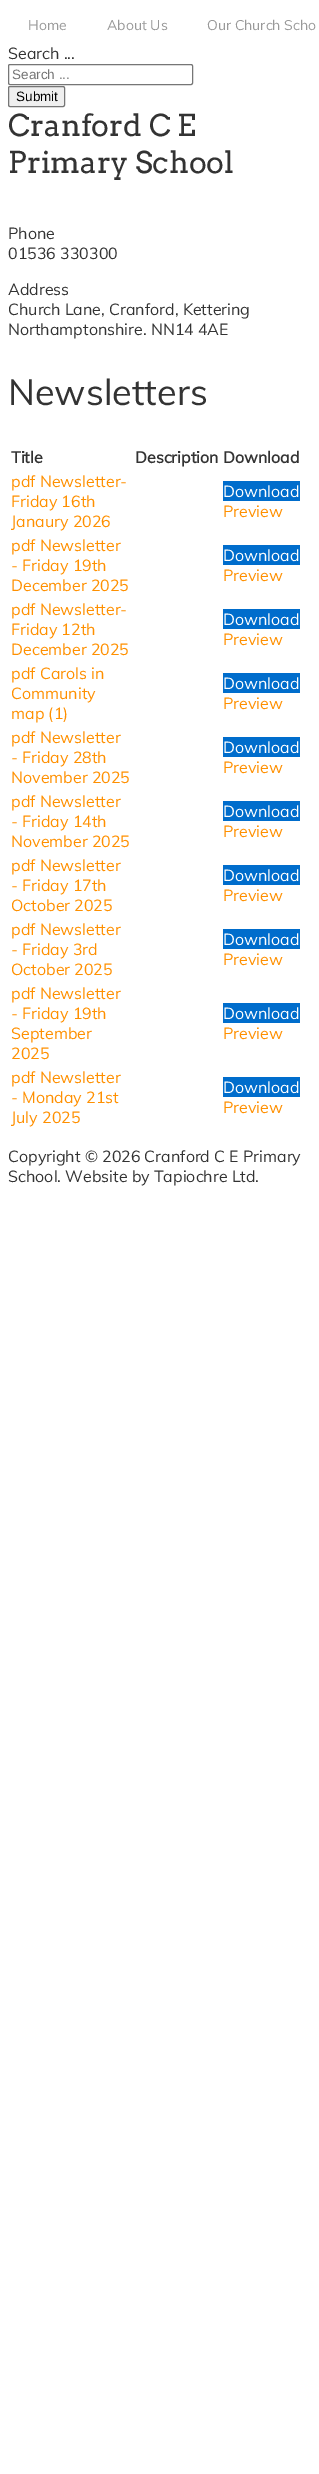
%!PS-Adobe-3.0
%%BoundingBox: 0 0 319 2474
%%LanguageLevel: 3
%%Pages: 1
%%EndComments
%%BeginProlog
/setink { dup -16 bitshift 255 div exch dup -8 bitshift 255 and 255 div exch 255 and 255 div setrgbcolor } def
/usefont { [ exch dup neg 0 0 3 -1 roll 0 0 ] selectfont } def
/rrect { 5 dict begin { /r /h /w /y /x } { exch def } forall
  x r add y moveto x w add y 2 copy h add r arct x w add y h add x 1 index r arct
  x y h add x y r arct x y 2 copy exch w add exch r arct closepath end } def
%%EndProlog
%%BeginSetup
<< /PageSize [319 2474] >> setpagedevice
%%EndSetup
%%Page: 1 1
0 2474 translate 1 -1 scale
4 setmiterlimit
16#FFFFFF setink
0 0 319 2474 rectfill
/Muli-Regular 14 usefont
16#999999 setink
[
    [(Home) 28 30]
    [(About Us) 107 30]
    [(Our Church Scho) 207 30]
] { aload pop moveto show } forall
/Muli-Regular 16 usefont
16#333333 setink
8 59 moveto (Search ...) show
16#767676 setink
8.5 64.5 184 20 1.5 rrect stroke
/LiberationSans-Regular 13.5 usefont
16#757575 setink
12 79 moveto (Search ...) show
16#EFEFEF setink
8.5 86.5 56 20 1.5 rrect gsave fill grestore
16#767676 setink
stroke
16#000000 setink
16 101 moveto (Submit) show
/Arvo-Regular 30 usefont
16#333333 setink
8 136 moveto (Cranford C E) show
8 173 moveto (Primary School) show
/Muli-Regular 16 usefont
[
    [(Phone) 8 239]
    [(01536 330300) 8 259]
    [(Address) 8 295]
    [(Church Lane, Cranford, Kettering) 8 315]
    [(Northamptonshire. NN14 4AE) 8 335]
] { aload pop moveto show } forall
/Muli-Regular 36 usefont
8 405 moveto (Newsletters) show
/Muli-Bold 16 usefont
11 463 moveto (Title) show
135 463 moveto (Description Download) show
/Muli-Regular 16 usefont
16#FF9000 setink
[
    [(pdf Newsletter-) 11 487]
    [(Friday 16th) 11 507]
    [(Janaury 2026) 11 527]
] { aload pop moveto show } forall
16#006DCC setink
223 481 77 20 rectfill
16#FFFFFF setink
223 497 moveto (Download) show
16#FF9000 setink
[
    [(Preview) 223 517]
    [(pdf Newsletter) 11 551]
    [(- Friday 19th) 11 571]
    [(December 2025) 11 591]
] { aload pop moveto show } forall
16#006DCC setink
223 545 77 20 rectfill
16#FFFFFF setink
223 561 moveto (Download) show
16#FF9000 setink
[
    [(Preview) 223 581]
    [(pdf Newsletter-) 11 615]
    [(Friday 12th) 11 635]
    [(December 2025) 11 655]
] { aload pop moveto show } forall
16#006DCC setink
223 609 77 20 rectfill
16#FFFFFF setink
223 625 moveto (Download) show
16#FF9000 setink
[
    [(Preview) 223 645]
    [(pdf Carols in) 11 679]
    [(Community) 11 699]
    [(map \(1\)) 11 719]
] { aload pop moveto show } forall
16#006DCC setink
223 673 77 20 rectfill
16#FFFFFF setink
223 689 moveto (Download) show
16#FF9000 setink
[
    [(Preview) 223 709]
    [(pdf Newsletter) 11 743]
    [(- Friday 28th) 11 763]
    [(November 2025) 11 783]
] { aload pop moveto show } forall
16#006DCC setink
223 737 77 20 rectfill
16#FFFFFF setink
223 753 moveto (Download) show
16#FF9000 setink
[
    [(Preview) 223 773]
    [(pdf Newsletter) 11 807]
    [(- Friday 14th) 11 827]
    [(November 2025) 11 847]
] { aload pop moveto show } forall
16#006DCC setink
223 801 77 20 rectfill
16#FFFFFF setink
223 817 moveto (Download) show
16#FF9000 setink
[
    [(Preview) 223 837]
    [(pdf Newsletter) 11 871]
    [(- Friday 17th) 11 891]
    [(October 2025) 11 911]
] { aload pop moveto show } forall
16#006DCC setink
223 865 77 20 rectfill
16#FFFFFF setink
223 881 moveto (Download) show
16#FF9000 setink
[
    [(Preview) 223 901]
    [(pdf Newsletter) 11 935]
    [(- Friday 3rd) 11 955]
    [(October 2025) 11 975]
] { aload pop moveto show } forall
16#006DCC setink
223 929 77 20 rectfill
16#FFFFFF setink
223 945 moveto (Download) show
16#FF9000 setink
[
    [(Preview) 223 965]
    [(pdf Newsletter) 11 999]
    [(- Friday 19th) 11 1019]
    [(September) 11 1039]
    [(2025) 11 1059]
] { aload pop moveto show } forall
16#006DCC setink
223 1003 77 20 rectfill
16#FFFFFF setink
223 1019 moveto (Download) show
16#FF9000 setink
[
    [(Preview) 223 1039]
    [(pdf Newsletter) 11 1083]
    [(- Monday 21st) 11 1103]
    [(July 2025) 11 1123]
] { aload pop moveto show } forall
16#006DCC setink
223 1077 77 20 rectfill
16#FFFFFF setink
223 1093 moveto (Download) show
16#FF9000 setink
223 1113 moveto (Preview) show
16#333333 setink
8 1162 moveto (Copyright © 2026 Cranford C E Primary) show
8 1182 moveto (School. Website by Tapiochre Ltd.) show
showpage
%%EOF
